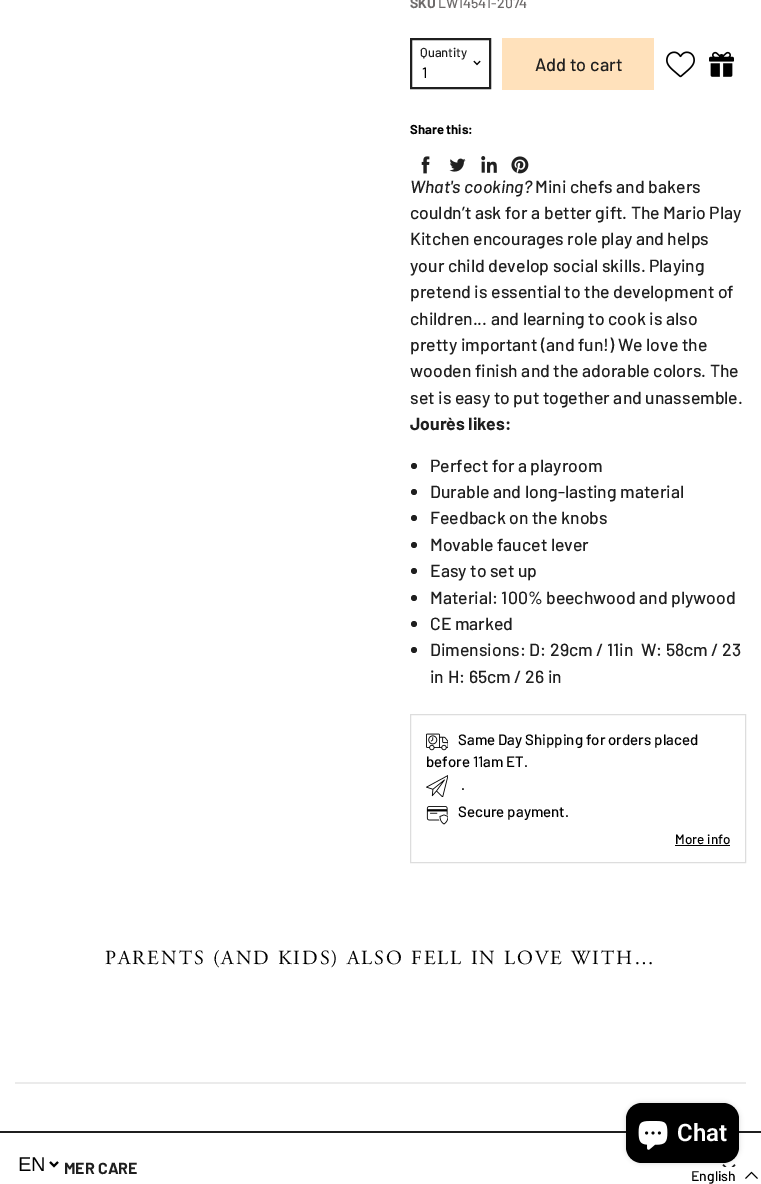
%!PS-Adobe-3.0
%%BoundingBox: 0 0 761 1184
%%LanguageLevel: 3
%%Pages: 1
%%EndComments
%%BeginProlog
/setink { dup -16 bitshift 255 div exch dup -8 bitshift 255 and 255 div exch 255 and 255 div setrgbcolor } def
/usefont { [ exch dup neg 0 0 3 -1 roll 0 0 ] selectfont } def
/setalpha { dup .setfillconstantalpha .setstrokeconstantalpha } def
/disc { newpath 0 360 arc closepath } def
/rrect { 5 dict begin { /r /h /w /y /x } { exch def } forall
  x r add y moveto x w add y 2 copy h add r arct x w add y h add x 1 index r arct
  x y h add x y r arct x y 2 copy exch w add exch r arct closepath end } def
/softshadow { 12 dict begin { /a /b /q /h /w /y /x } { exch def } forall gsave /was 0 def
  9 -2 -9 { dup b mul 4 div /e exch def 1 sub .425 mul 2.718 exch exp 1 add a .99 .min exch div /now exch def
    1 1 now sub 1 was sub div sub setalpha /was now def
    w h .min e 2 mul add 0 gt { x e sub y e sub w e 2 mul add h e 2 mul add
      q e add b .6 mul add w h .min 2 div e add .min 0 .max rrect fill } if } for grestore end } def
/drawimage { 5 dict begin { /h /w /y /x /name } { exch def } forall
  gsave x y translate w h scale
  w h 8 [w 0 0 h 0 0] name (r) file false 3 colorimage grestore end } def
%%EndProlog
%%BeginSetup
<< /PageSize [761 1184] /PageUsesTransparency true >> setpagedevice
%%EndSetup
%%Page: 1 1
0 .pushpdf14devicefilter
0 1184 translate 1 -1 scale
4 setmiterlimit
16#FFFFFF setink
0 0 761 1184 rectfill
/Barlow-Bold 14 usefont
16#6D6A6A setink
410 8 moveto (SKU) show
/Barlow-Medium 14 usefont
438 8 moveto (LW14541-2074) show
16#1F1F1F setink
2 setlinewidth
411 39 79 49 rectstroke
/Barlow-Medium 13 usefont
420 57 moveto (Quantity) show
(img1.raw) 473 60 8 6 drawimage
/Barlow-Medium 15 usefont
16#000000 setink
422 78 moveto (1) show
16#FFE1BB setink
502 38 152 52 rectfill
/Barlow-Medium 18 usefont
16#1F1F1F setink
535 71 moveto (Add to cart) show
(img2.raw) 666 51 29 27 drawimage
(img3.raw) 709 51 25 26 drawimage
/Barlow-Bold 13 usefont
16#000000 setink
410 134 moveto (Share this:) show
(img4.raw) 421 156 9 18 drawimage
(img5.raw) 449 158 17 14 drawimage
(img6.raw) 481 156 16 17 drawimage
(img7.raw) 511 156 18 18 drawimage
/Barlow-MediumItalic 17.6 usefont
16#1F1F1F setink
410 193 moveto (What's cooking?) show
/Barlow-Medium 17.6 usefont
[
    [(Mini chefs and bakers) 535 193]
    [(couldn’t ask for a better gift. The Mario Play) 410 219]
    [(Kitchen encourages role play and helps) 410 245]
    [(your child develop social skills. Playing) 410 272]
    [(pretend is essential to the development of) 410 298]
    [(children... and learning to cook is also) 410 325]
    [(pretty important \(and fun!\) We love the) 410 351]
    [(wooden finish and the adorable colors. The) 410 377]
    [(set is easy to put together and unassemble.) 410 404]
] { aload pop moveto show } forall
/Barlow-Bold 17.6 usefont
410 430 moveto (Jourès likes:) show
414 466 3 disc fill
/Barlow-Medium 17.6 usefont
430 472 moveto (Perfect for a playroom) show
414 492 3 disc fill
430 498 moveto (Durable and long-lasting material) show
414 518 3 disc fill
430 524 moveto (Feedback on the knobs) show
414 545 3 disc fill
430 551 moveto (Movable faucet lever) show
414 571 3 disc fill
430 577 moveto (Easy to set up) show
414 598 3 disc fill
430 604 moveto (Material: 100% beechwood and plywood) show
414 624 3 disc fill
430 630 moveto (CE marked) show
414 650 3 disc fill
430 656 moveto (Dimensions: D: 29cm / 11in  W: 58cm / 23) show
430 683 moveto (in H: 65cm / 26 in) show
16#DDDDDD setink
1 setlinewidth
410.5 714.5 335 148 rectstroke
(img8.raw) 426 733 22 18 drawimage
/Barlow-Medium 15 usefont
16#000000 setink
458 745 moveto (Same Day Shipping for orders placed) show
426 767 moveto (before 11am ET.) show
(img9.raw) 426 775 22 22 drawimage
461 790 moveto (.) show
(img10.raw) 426 806 22 19 drawimage
458 817 moveto (Secure payment.) show
/Barlow-Medium 13.5 usefont
675 844 moveto (More info) show
675 845 55 1 rectfill
/AdobeGaramond-Regular 20 usefont
105 964 moveto 2 0 (PARENTS \(AND KIDS\) ALSO FELL IN LOVE WITH…) ashow
16#EBEBEB setink
15 1082 731 2 rectfill
16#1F1F1F setink
0 1131 761 2 rectfill
(img12.raw) 722 1164 14 3 drawimage
16#000000 setink
757.5 1178.5 moveto 751.5 1172.5 lineto 745.5 1178.5 lineto stroke
626 1103 113 60 16 2.5 0.15 softshadow
626 1103 113 60 16 rrect fill
(img11.raw) 638 1121 30 29 drawimage
/Roboto-SemiBold 24 usefont
16#FFFFFF setink
677 1141 moveto (Chat) show
16#000000 setink
2 setlinewidth
50 1162 moveto 54 1166 lineto 58 1162 lineto stroke
/LiberationSans-Regular 20 usefont
18 1171 moveto (EN) show
/Barlow-Bold 16 usefont
16#1F1F1F setink
64 1174 moveto (MER CARE) show
/Barlow-Medium 14 usefont
16#000000 setink
691 1181 moveto (English) show
.poppdf14devicefilter showpage
%%EOF
